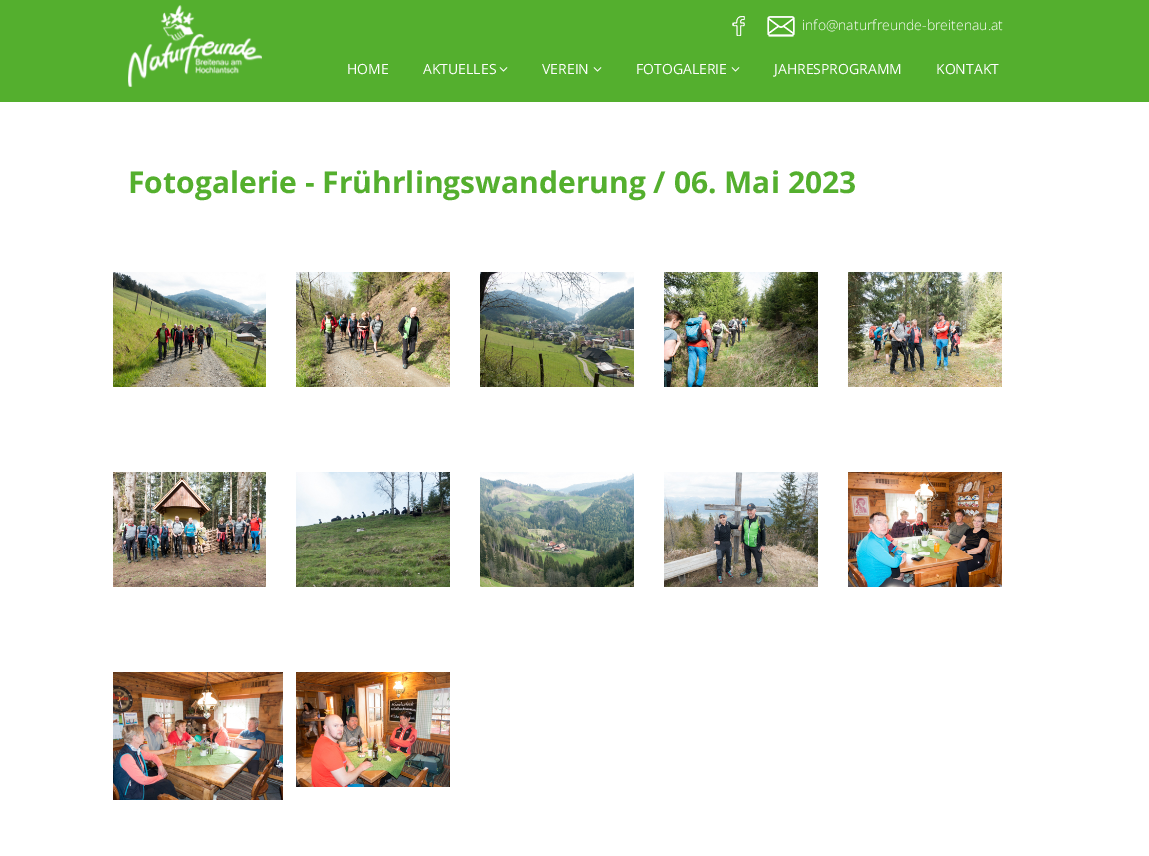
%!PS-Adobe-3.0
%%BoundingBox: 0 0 1149 856
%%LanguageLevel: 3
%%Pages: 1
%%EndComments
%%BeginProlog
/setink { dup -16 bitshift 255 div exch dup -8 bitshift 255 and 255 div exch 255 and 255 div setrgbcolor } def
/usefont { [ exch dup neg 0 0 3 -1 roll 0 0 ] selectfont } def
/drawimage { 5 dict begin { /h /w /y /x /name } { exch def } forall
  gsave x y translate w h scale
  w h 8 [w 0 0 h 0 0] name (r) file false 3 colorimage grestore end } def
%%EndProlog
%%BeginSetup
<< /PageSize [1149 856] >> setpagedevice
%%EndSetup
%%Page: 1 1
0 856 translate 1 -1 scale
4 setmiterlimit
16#FFFFFF setink
0 0 1149 856 rectfill
16#54AF2E setink
0 0 1149 102 rectfill
(img1.raw) 128 5 134 82 drawimage
(img2.raw) 732 16 13 20 drawimage
(img3.raw) 767 16 28 21 drawimage
/OpenSans-Light 14 usefont
16#FFFFFF setink
802 30 moveto (info@naturfreunde-breitenau.at) show
/OpenSans-Regular 14 usefont
347 74 moveto (HOME) show
423 74 moveto (AKTUELLES) show
(img4.raw) 499 67 9 5 drawimage
542 74 moveto (VEREIN) show
(img4.raw) 593 67 9 5 drawimage
636 74 moveto (FOTOGALERIE) show
(img4.raw) 731 67 9 5 drawimage
774 74 moveto (JAHRESPROGRAMM) show
936 74 moveto (KONTAKT) show
/OpenSans-Bold 30 usefont
16#54AF2E setink
128 193 moveto (Fotogalerie - Frührlingswanderung / 06. Mai 2023) show
(img5.raw) 113 272 153 115 drawimage
(img6.raw) 296 272 154 115 drawimage
(img7.raw) 480 272 154 115 drawimage
(img8.raw) 664 272 154 115 drawimage
(img9.raw) 848 272 154 115 drawimage
(img10.raw) 113 472 153 115 drawimage
(img11.raw) 296 472 154 115 drawimage
(img12.raw) 480 472 154 115 drawimage
(img13.raw) 664 472 154 115 drawimage
(img14.raw) 848 472 154 115 drawimage
(img15.raw) 113 672 170 128 drawimage
(img16.raw) 296 672 154 115 drawimage
showpage
%%EOF
